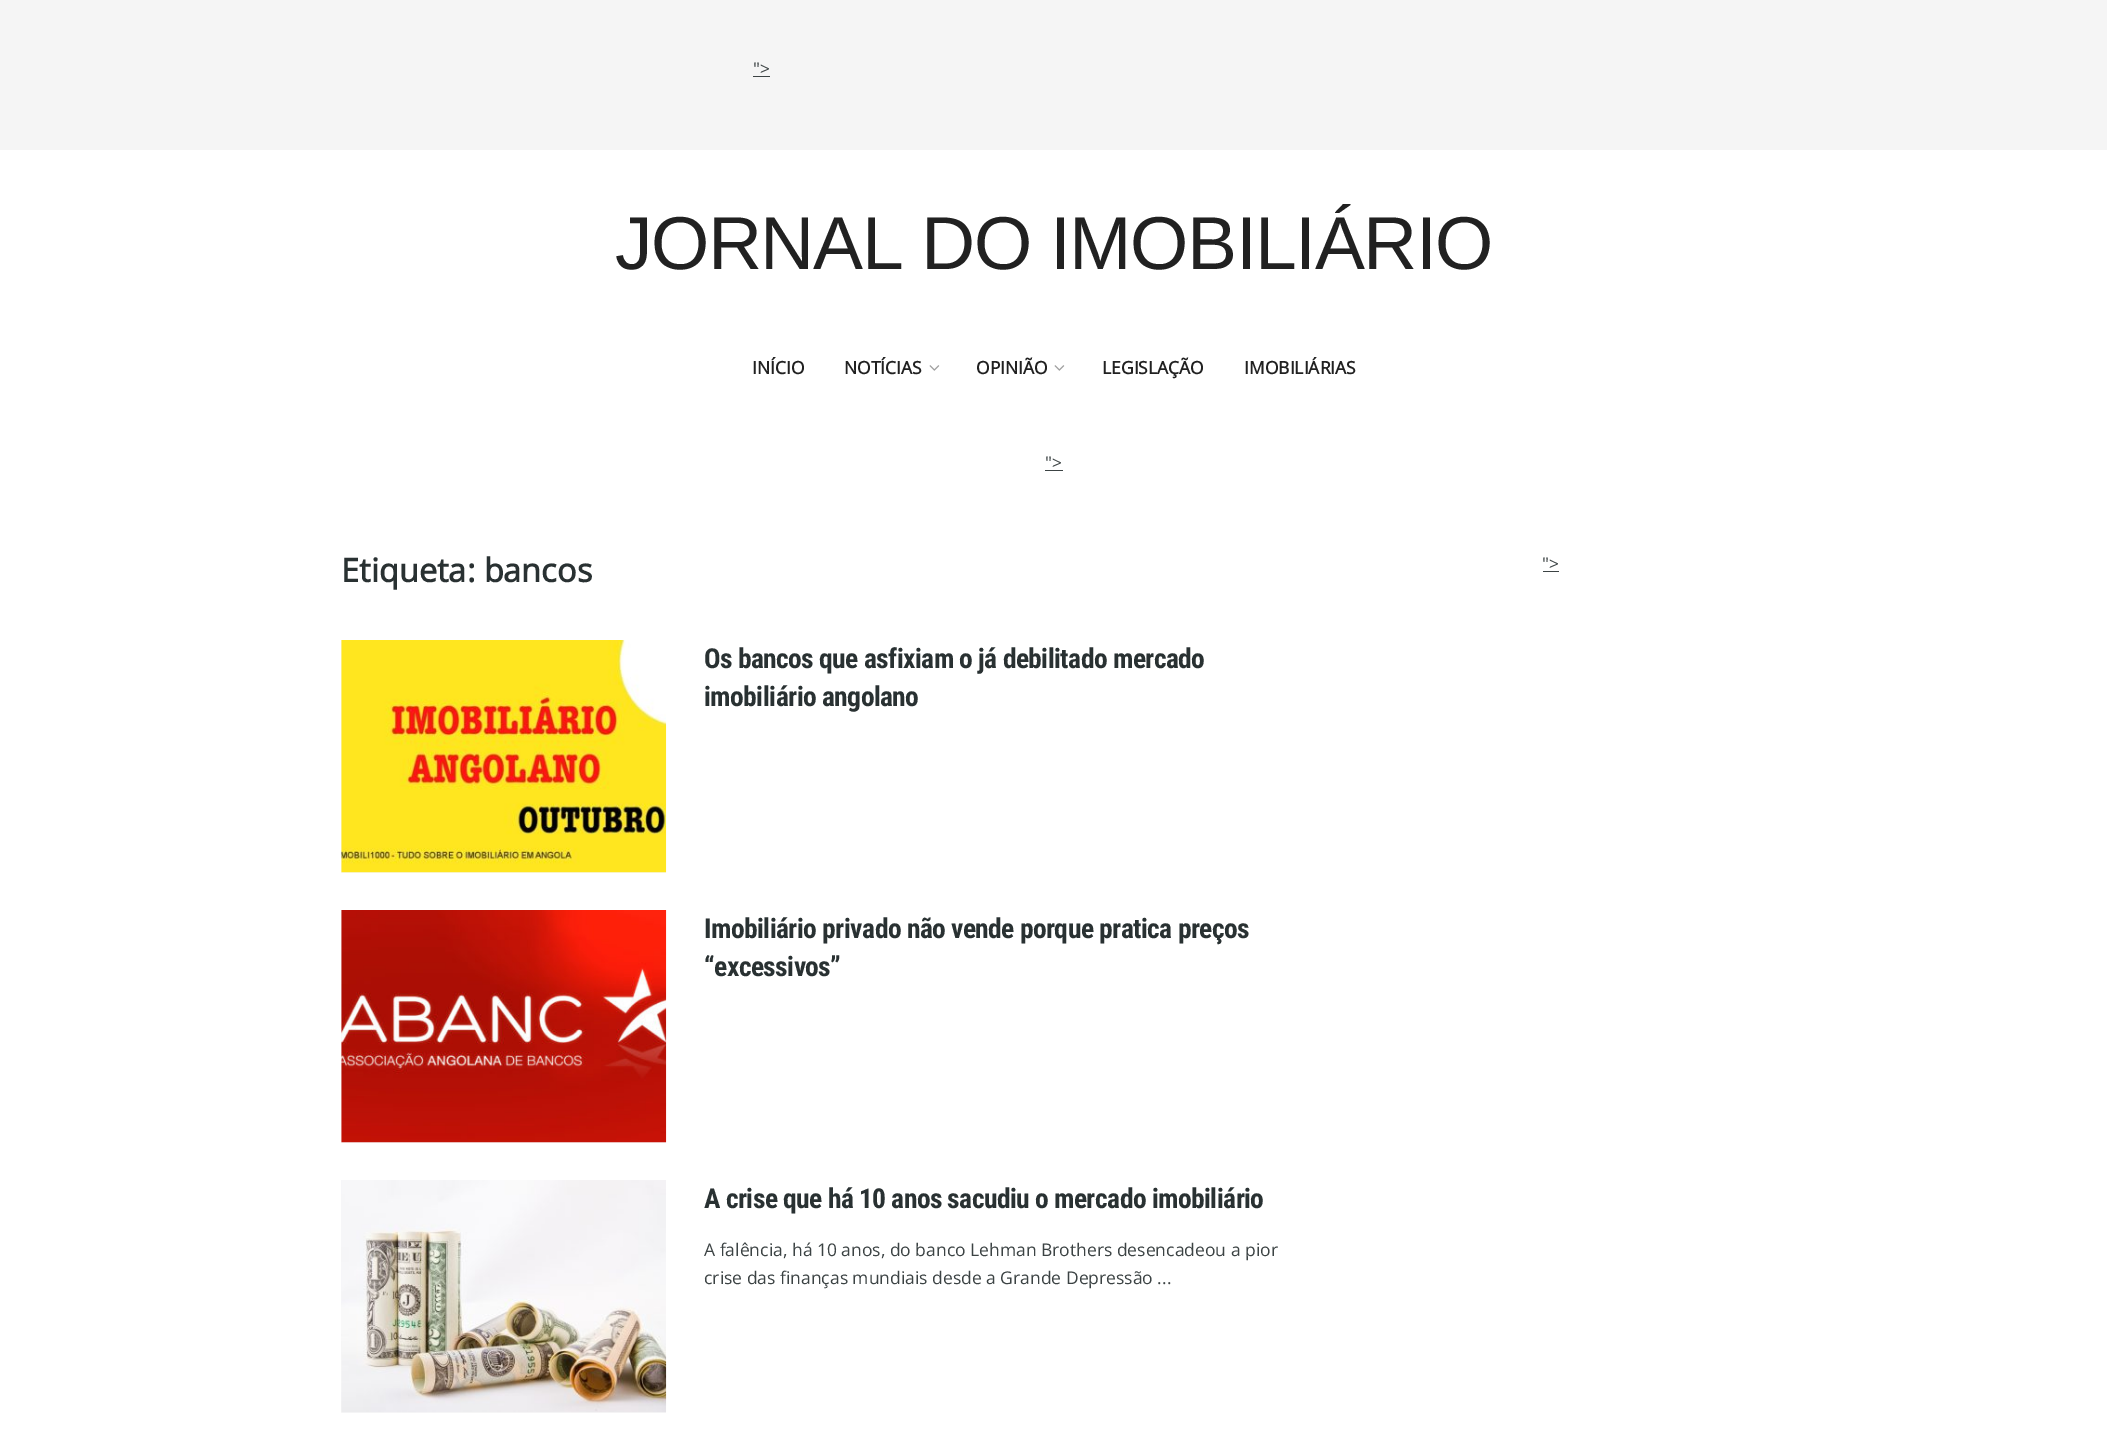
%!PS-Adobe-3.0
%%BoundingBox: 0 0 2107 1451
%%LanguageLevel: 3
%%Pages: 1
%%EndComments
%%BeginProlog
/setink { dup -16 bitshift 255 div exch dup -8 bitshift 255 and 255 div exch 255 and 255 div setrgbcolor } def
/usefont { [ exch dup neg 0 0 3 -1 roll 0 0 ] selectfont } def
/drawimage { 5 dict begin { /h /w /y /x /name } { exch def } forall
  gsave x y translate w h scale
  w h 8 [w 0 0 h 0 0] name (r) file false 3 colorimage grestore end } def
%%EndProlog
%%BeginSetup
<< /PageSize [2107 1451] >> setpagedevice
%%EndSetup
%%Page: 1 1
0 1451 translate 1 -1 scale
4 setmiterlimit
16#FFFFFF setink
0 0 2107 1451 rectfill
16#F5F5F5 setink
0 0 2107 150 rectfill
/OpenSans-Regular 17.5 usefont
16#3C4344 setink
753 75 moveto (">) show
753 76 17 1 rectfill
/LiberationSans-Regular 75 usefont
16#212121 setink
615 269 moveto -1.5 0 (JORNAL DO IMOBILIÁRIO) ashow
/OpenSans-Bold 17.5 usefont
752 374 moveto (INÍCIO) show
844 374 moveto (NOTÍCIAS) show
(img1.raw) 929 365 11 6 drawimage
976 374 moveto (OPINIÃO) show
(img1.raw) 1054 365 11 6 drawimage
1102 374 moveto (LEGISLAÇÃO) show
1244 374 moveto (IMOBILIÁRIAS) show
/OpenSans-Regular 17.5 usefont
16#3C4344 setink
1045 469 moveto (">) show
1045 470 18 1 rectfill
/OpenSans-Bold 32.5 usefont
16#293132 setink
341 582 moveto (Etiqueta: bancos) show
16#F7F7F7 setink
341 640 325 233 rectfill
(img2.raw) 341 640 326 233 drawimage
/RobotoCondensed-Bold 27.5 usefont
16#293132 setink
704 668 moveto -0.55 0 (Os bancos que asfixiam o já debilitado mercado) ashow
704 706 moveto -0.55 0 (imobiliário angolano) ashow
16#F7F7F7 setink
341 910 325 233 rectfill
(img3.raw) 341 910 326 233 drawimage
16#293132 setink
704 938 moveto -0.55 0 (Imobiliário privado não vende porque pratica preços) ashow
704 976 moveto -0.55 0 (“excessivos”) ashow
16#F7F7F7 setink
341 1180 325 233 rectfill
(img4.raw) 341 1180 326 233 drawimage
16#293132 setink
704 1208 moveto -0.55 0 (A crise que há 10 anos sacudiu o mercado imobiliário) ashow
/OpenSans-Regular 17.5 usefont
16#3C4344 setink
[
    [(A falência, há 10 anos, do banco Lehman Brothers desencadeou a pior) 704 1256]
    [(crise das finanças mundiais desde a Grande Depressão ...) 704 1284]
    [(">) 1542 570]
] { aload pop moveto show } forall
1543 571 16 1 rectfill
showpage
%%EOF
